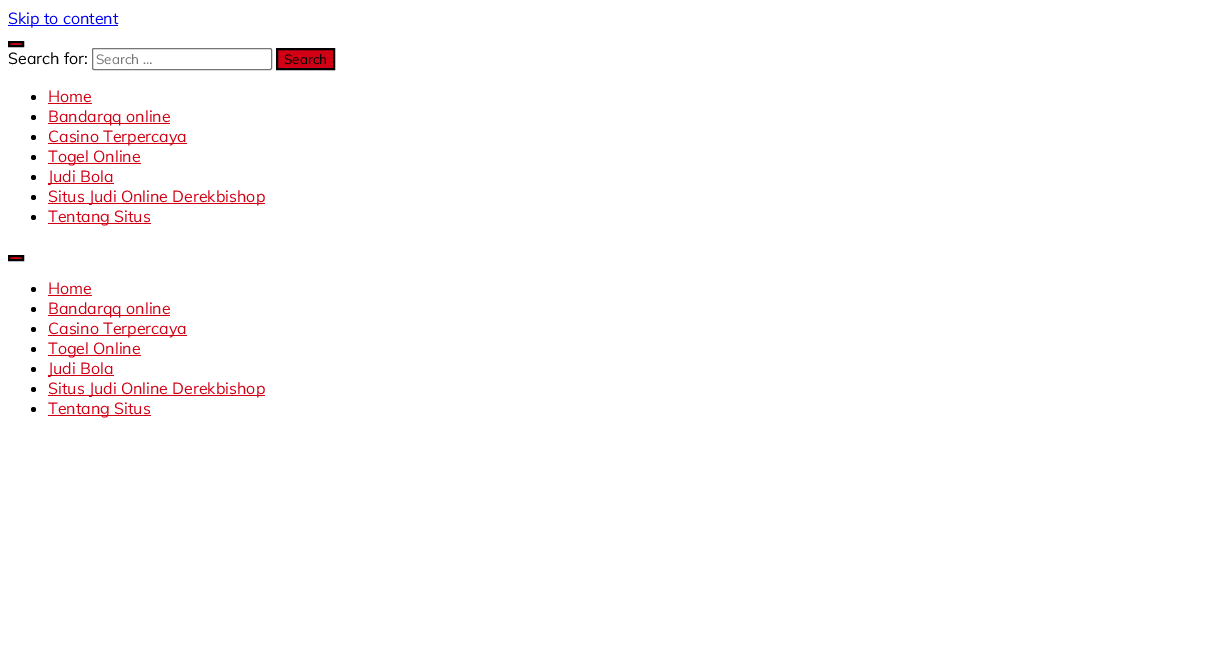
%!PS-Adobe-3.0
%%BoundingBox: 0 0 1211 667
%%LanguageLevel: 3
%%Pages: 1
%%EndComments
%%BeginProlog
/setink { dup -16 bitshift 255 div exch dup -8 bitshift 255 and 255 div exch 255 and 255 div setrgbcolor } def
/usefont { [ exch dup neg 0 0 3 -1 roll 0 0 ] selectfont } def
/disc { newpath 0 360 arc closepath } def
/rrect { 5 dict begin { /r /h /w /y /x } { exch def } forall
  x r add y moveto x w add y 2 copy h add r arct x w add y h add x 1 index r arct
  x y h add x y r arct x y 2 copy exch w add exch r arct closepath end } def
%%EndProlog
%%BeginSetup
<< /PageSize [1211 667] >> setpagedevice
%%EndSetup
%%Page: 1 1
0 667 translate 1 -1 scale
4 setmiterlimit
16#FFFFFF setink
0 0 1211 667 rectfill
16#0000EE setink
8 25 110 1 rectfill
/Muli-Regular 16 usefont
8 24 moveto (Skip to content) show
16#D10014 setink
9 42 moveto 23 42 lineto 23 46 lineto 9 46 lineto closepath gsave fill grestore
16#000000 setink
2 setlinewidth
stroke
8 64 moveto (Search for:) show
16#767676 setink
1 setlinewidth
92.5 48.5 179 21 1.5 rrect stroke
/Muli-Regular 13.5 usefont
16#757575 setink
96 64 moveto (Search …) show
16#D10014 setink
277 49 moveto 334 49 lineto 334 69 lineto 277 69 lineto closepath gsave fill grestore
16#000000 setink
2 setlinewidth
stroke
284 64 moveto (Search) show
33.5 97.5 2.5 disc fill
/Muli-Regular 16 usefont
16#D10014 setink
48 102 moveto (Home) show
48 103 44 1 rectfill
16#000000 setink
33.5 117.5 2.5 disc fill
16#D10014 setink
48 123 122 1 rectfill
48 122 moveto (Bandarqq online) show
16#000000 setink
33.5 137.5 2.5 disc fill
16#D10014 setink
48 143 139 1 rectfill
48 142 moveto (Casino Terpercaya) show
16#000000 setink
33.5 157.5 2.5 disc fill
16#D10014 setink
48 163 93 1 rectfill
48 162 moveto (Togel Online) show
16#000000 setink
33.5 177.5 2.5 disc fill
16#D10014 setink
48 183 66 1 rectfill
48 182 moveto (Judi Bola) show
16#000000 setink
33.5 197.5 2.5 disc fill
16#D10014 setink
48 203 217 1 rectfill
48 202 moveto (Situs Judi Online Derekbishop) show
16#000000 setink
33.5 217.5 2.5 disc fill
16#D10014 setink
48 223 103 1 rectfill
48 222 moveto (Tentang Situs) show
9 256 moveto 23 256 lineto 23 260 lineto 9 260 lineto closepath gsave fill grestore
16#000000 setink
stroke
33.5 289.5 2.5 disc fill
16#D10014 setink
48 294 moveto (Home) show
48 295 44 1 rectfill
16#000000 setink
33.5 309.5 2.5 disc fill
16#D10014 setink
48 315 122 1 rectfill
48 314 moveto (Bandarqq online) show
16#000000 setink
33.5 329.5 2.5 disc fill
16#D10014 setink
48 335 139 1 rectfill
48 334 moveto (Casino Terpercaya) show
16#000000 setink
33.5 349.5 2.5 disc fill
16#D10014 setink
48 355 93 1 rectfill
48 354 moveto (Togel Online) show
16#000000 setink
33.5 369.5 2.5 disc fill
16#D10014 setink
48 375 66 1 rectfill
48 374 moveto (Judi Bola) show
16#000000 setink
33.5 389.5 2.5 disc fill
16#D10014 setink
48 395 217 1 rectfill
48 394 moveto (Situs Judi Online Derekbishop) show
16#000000 setink
33.5 409.5 2.5 disc fill
16#D10014 setink
48 415 103 1 rectfill
48 414 moveto (Tentang Situs) show
showpage
%%EOF
